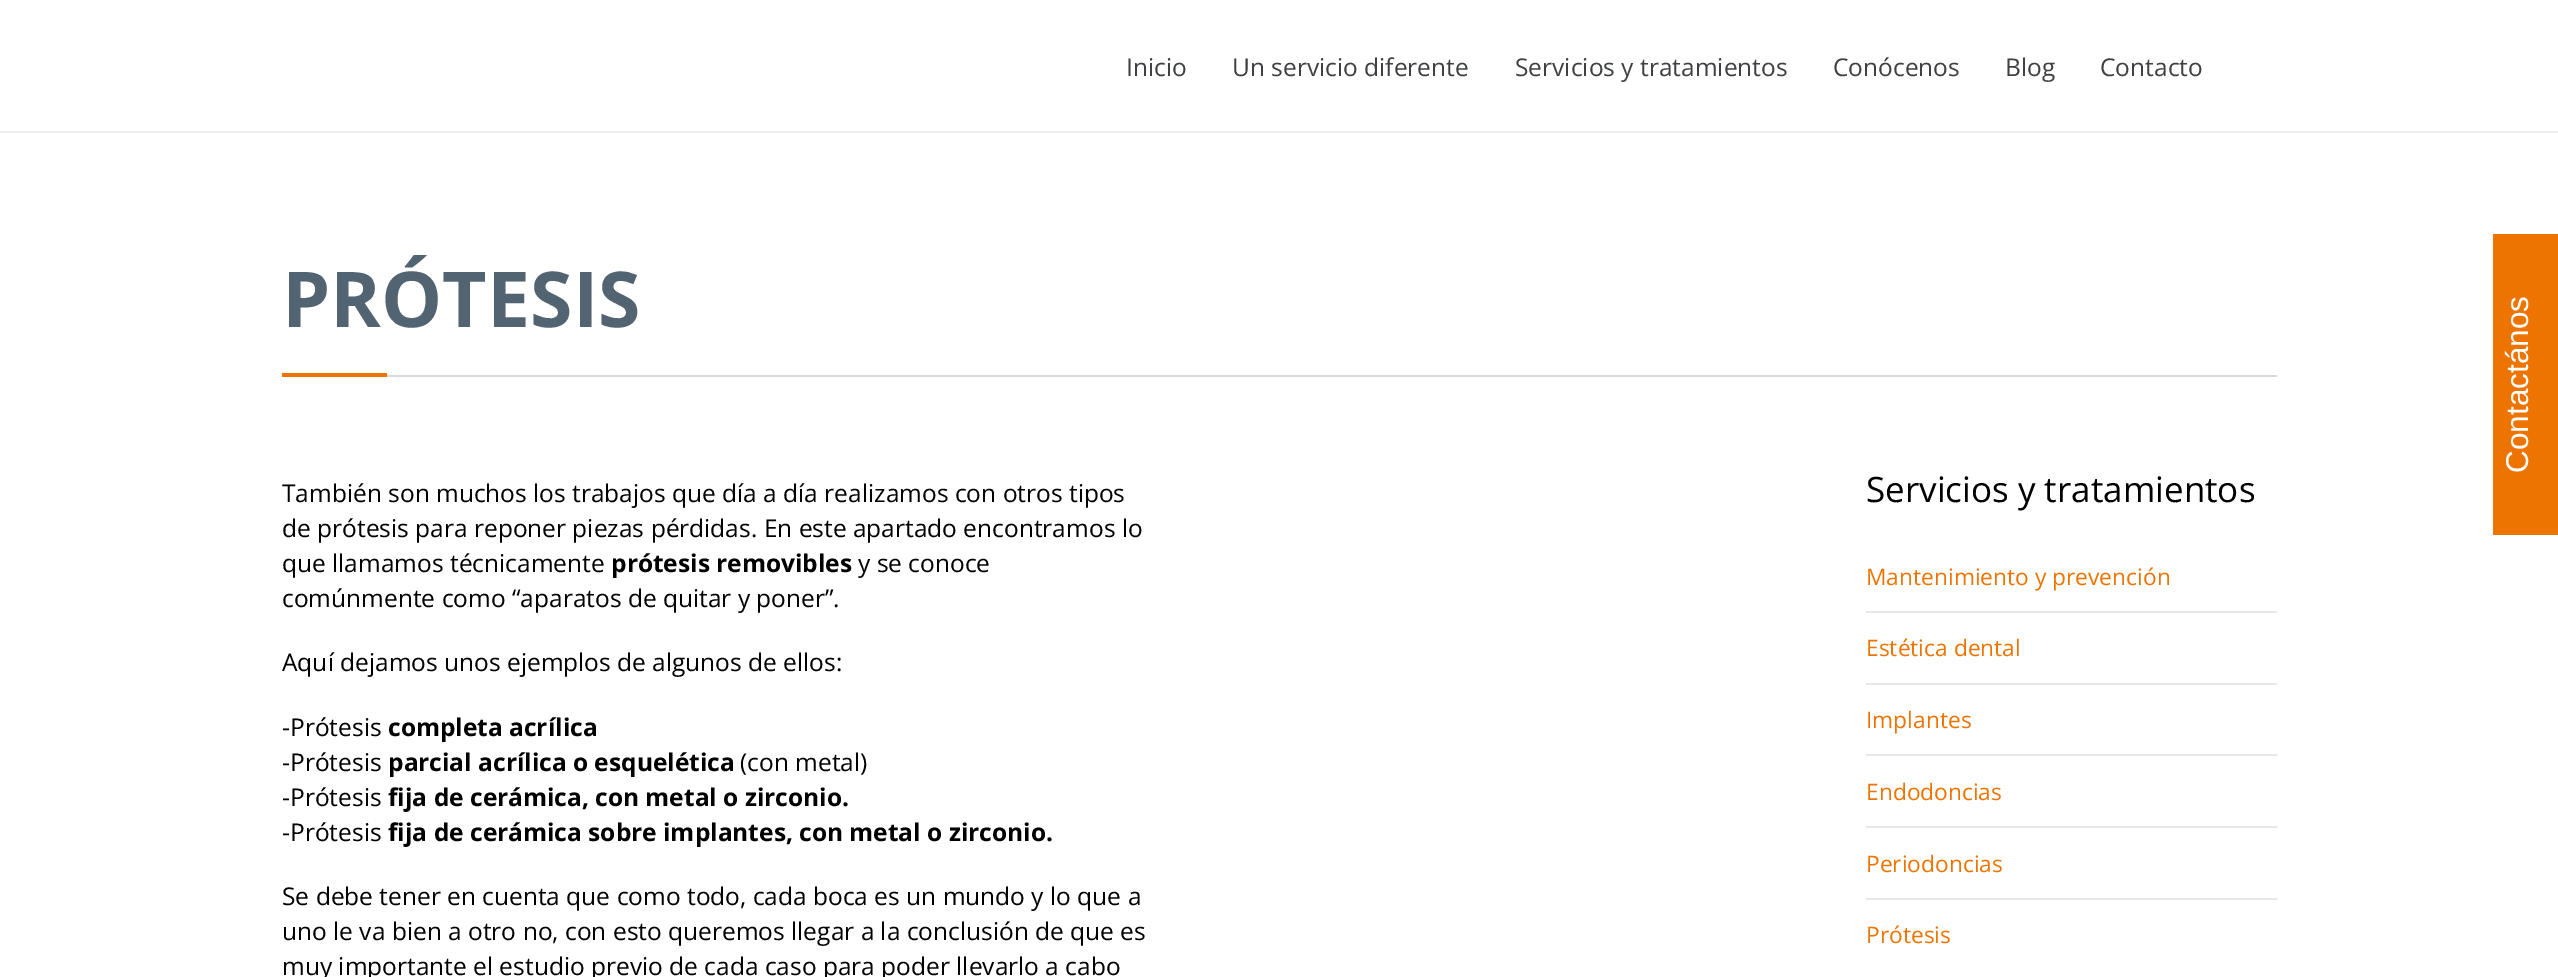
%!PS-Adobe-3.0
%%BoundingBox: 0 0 2558 977
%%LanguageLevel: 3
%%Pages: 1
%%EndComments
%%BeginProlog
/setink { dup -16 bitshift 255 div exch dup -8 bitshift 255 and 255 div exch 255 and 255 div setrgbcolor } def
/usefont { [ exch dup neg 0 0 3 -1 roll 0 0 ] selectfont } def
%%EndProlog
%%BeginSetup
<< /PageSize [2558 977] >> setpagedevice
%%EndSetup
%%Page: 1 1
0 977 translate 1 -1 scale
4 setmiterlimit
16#FFFFFF setink
0 0 2558 977 rectfill
16#F0F0F1 setink
0 131 2558 2 rectfill
/OpenSans-Regular 24.5 usefont
16#3E4043 setink
[
    [(Inicio) 1126 76]
    [(Un servicio diferente) 1232 76]
    [(Servicios y tratamientos) 1515 76]
    [(Conócenos) 1833 76]
    [(Blog) 2005 76]
    [(Contacto) 2100 76]
] { aload pop moveto show } forall
16#DADADE setink
387 375 1890 2 rectfill
/OpenSans-Bold 77 usefont
16#526371 setink
282 327 moveto (PRÓTESIS) show
16#EE7402 setink
282 373 105 4 rectfill
/OpenSans-Regular 24.5 usefont
16#000000 setink
[
    [(También son muchos los trabajos que día a día realizamos con otros tipos) 282 502]
    [(de prótesis para reponer piezas pérdidas. En este apartado encontramos lo) 282 537]
    [(que llamamos técnicamente) 282 572]
] { aload pop moveto show } forall
/OpenSans-Bold 24.5 usefont
611 572 moveto (prótesis removibles) show
/OpenSans-Regular 24.5 usefont
[
    [(y se conoce) 858 572]
    [(comúnmente como “aparatos de quitar y poner”.) 282 607]
    [(Aquí dejamos unos ejemplos de algunos de ellos:) 282 671]
    [(-Prótesis) 282 736]
] { aload pop moveto show } forall
/OpenSans-Bold 24.5 usefont
388 736 moveto (completa acrílica) show
/OpenSans-Regular 24.5 usefont
282 771 moveto (-Prótesis) show
/OpenSans-Bold 24.5 usefont
388 771 moveto (parcial acrílica o esquelética) show
/OpenSans-Regular 24.5 usefont
740 771 moveto (\(con metal\)) show
282 806 moveto (-Prótesis) show
/OpenSans-Bold 24.5 usefont
388 806 moveto (fija de cerámica, con metal o zirconio.) show
/OpenSans-Regular 24.5 usefont
282 841 moveto (-Prótesis) show
/OpenSans-Bold 24.5 usefont
388 841 moveto (fija de cerámica sobre implantes, con metal o zirconio.) show
/OpenSans-Regular 24.5 usefont
[
    [(Se debe tener en cuenta que como todo, cada boca es un mundo y lo que a) 282 905]
    [(uno le va bien a otro no, con esto queremos llegar a la conclusión de que es) 282 940]
    [(muy importante el estudio previo de cada caso para poder llevarlo a cabo) 282 975]
] { aload pop moveto show } forall
/OpenSans-Regular 35 usefont
1866 502 moveto (Servicios y tratamientos) show
16#E8E8EA setink
1866 611 411 2 rectfill
/OpenSans-Regular 22.75 usefont
16#EE7402 setink
1866 585 moveto (Mantenimiento y prevención) show
16#E8E8EA setink
1866 683 411 2 rectfill
16#EE7402 setink
1866 656 moveto (Estética dental) show
16#E8E8EA setink
1866 754 411 2 rectfill
16#EE7402 setink
1866 728 moveto (Implantes) show
16#E8E8EA setink
1866 826 411 2 rectfill
16#EE7402 setink
1866 800 moveto (Endodoncias) show
16#E8E8EA setink
1866 898 411 2 rectfill
16#EE7402 setink
1866 872 moveto (Periodoncias) show
1866 943 moveto (Prótesis) show
2493 234 65 301 rectfill
/LiberationSans-Regular 31.5 usefont
16#FFFFFF setink
gsave 2528 473 translate -90 rotate 0 0 moveto (Contactános) show grestore
showpage
%%EOF
